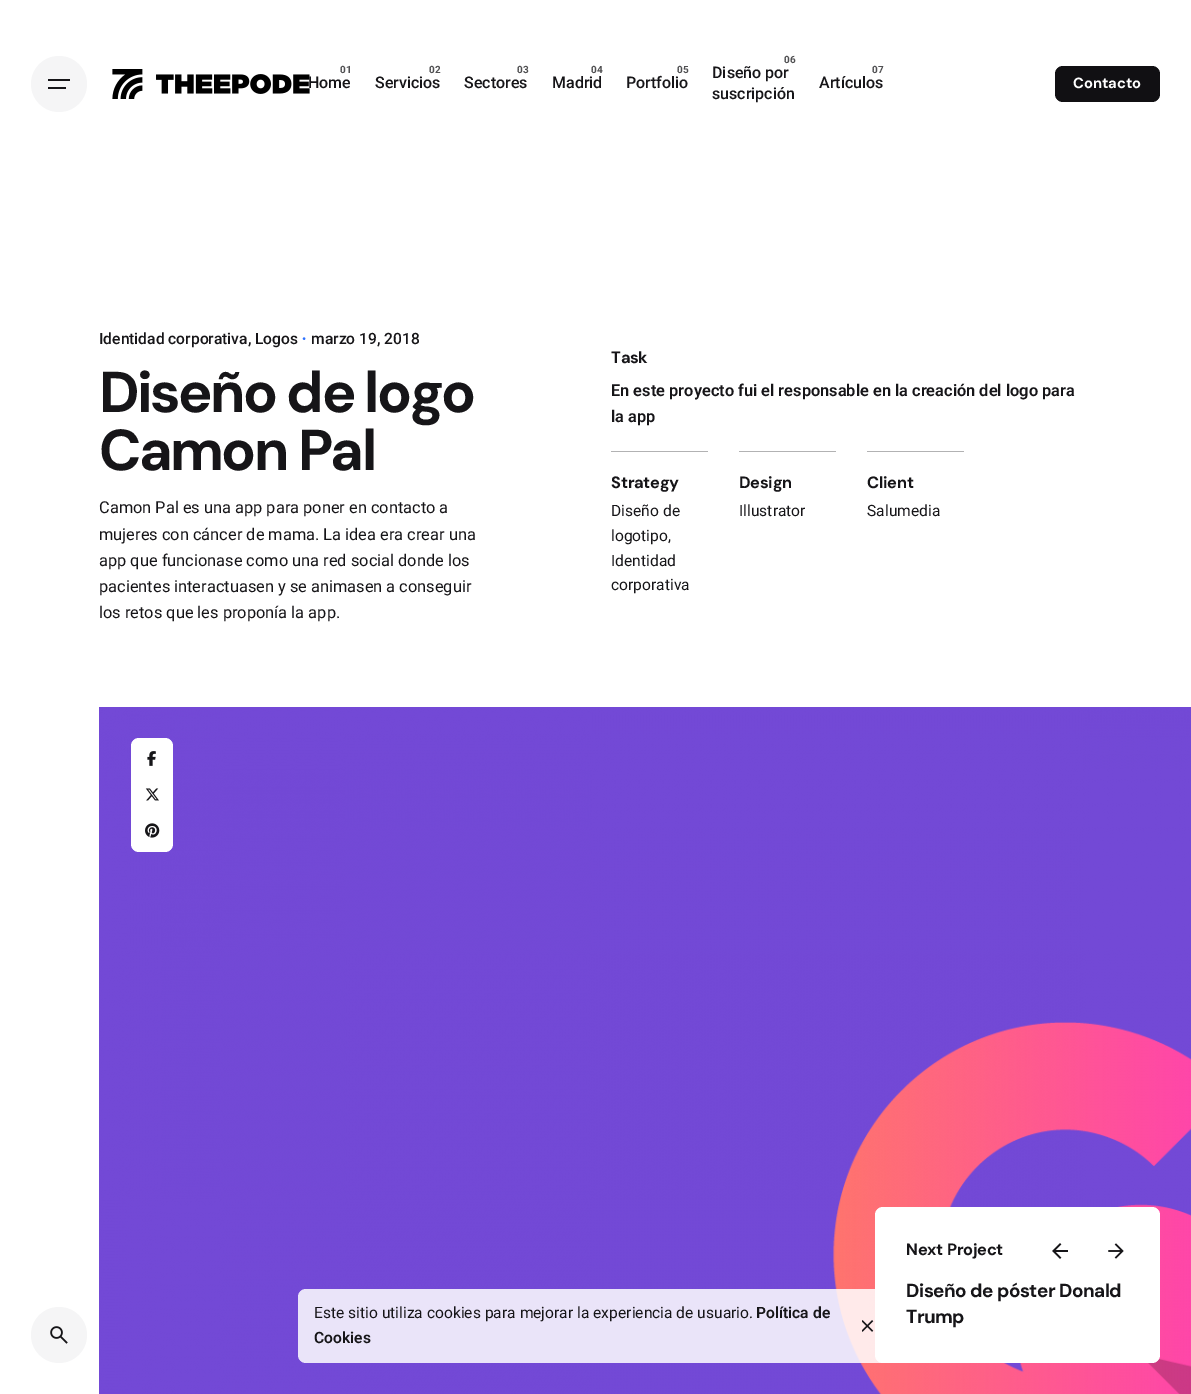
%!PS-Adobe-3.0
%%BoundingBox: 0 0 1191 1394
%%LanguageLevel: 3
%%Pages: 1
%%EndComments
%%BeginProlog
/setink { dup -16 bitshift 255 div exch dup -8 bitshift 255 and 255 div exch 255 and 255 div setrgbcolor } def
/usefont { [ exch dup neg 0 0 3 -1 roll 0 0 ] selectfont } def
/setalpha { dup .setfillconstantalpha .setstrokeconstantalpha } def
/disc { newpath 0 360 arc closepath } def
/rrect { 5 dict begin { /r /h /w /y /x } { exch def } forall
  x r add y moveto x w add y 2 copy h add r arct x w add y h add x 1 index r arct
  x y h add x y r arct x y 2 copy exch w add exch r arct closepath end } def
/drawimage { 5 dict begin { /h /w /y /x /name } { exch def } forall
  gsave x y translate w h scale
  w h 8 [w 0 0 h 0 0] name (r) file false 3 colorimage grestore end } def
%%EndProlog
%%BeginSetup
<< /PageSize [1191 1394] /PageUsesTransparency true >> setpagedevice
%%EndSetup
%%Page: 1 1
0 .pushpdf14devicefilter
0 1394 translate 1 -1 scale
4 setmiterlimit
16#FFFFFF setink
0 0 1191 1394 rectfill
16#F5F5F6 setink
59 84 28 disc fill
16#161518 setink
48 79 22 2 rectfill
48 87 18 2 rectfill
(img1.raw) 112 69 198 30 drawimage
/Roboto-Bold 10 usefont
16#505052 setink
340 73 moveto (01) show
/Roboto-Medium 16 usefont
16#161518 setink
308 88 moveto (Home) show
/Roboto-Bold 10 usefont
16#505052 setink
429 73 moveto (02) show
/Roboto-Medium 16 usefont
16#161518 setink
375 88 moveto (Servicios) show
/Roboto-Bold 10 usefont
16#505052 setink
517 73 moveto (03) show
/Roboto-Medium 16 usefont
16#161518 setink
464 88 moveto (Sectores) show
/Roboto-Bold 10 usefont
16#505052 setink
591 73 moveto (04) show
/Roboto-Medium 16 usefont
16#161518 setink
552 88 moveto (Madrid) show
/Roboto-Bold 10 usefont
16#505052 setink
677 73 moveto (05) show
/Roboto-Medium 16 usefont
16#161518 setink
626 88 moveto (Portfolio) show
/Roboto-Bold 10 usefont
16#505052 setink
784 63 moveto (06) show
/Roboto-Medium 16 usefont
16#161518 setink
712 78 moveto (Diseño por) show
712 99 moveto (suscripción) show
/Roboto-Bold 10 usefont
16#505052 setink
872 73 moveto (07) show
/Roboto-Medium 16 usefont
16#161518 setink
819 88 moveto (Artículos) show
16#111013 setink
1055 66 105 36 8 rrect fill
/DMSans-Bold 14.75 usefont
16#FFFFFF setink
1073 88 moveto (Contacto) show
/Roboto-Medium 15.6 usefont
16#161518 setink
99 344 moveto (Identidad corporativa, Logos) show
/Roboto-Medium 12 usefont
16#2E72FF setink
302 343 moveto (•) show
/Roboto-Medium 15.6 usefont
16#161518 setink
311 344 moveto (marzo 19, 2018) show
/DMSans-Bold 57.5 usefont
99 412 moveto -2.6 0 (Diseño de logo) ashow
99 470 moveto -2.6 0 (Camon Pal) ashow
/Roboto-Regular 16.4 usefont
[
    [(Camon Pal es una app para poner en contacto a) 99 513]
    [(mujeres con cáncer de mama. La idea era crear una) 99 540]
    [(app que funcionase como una red social donde los) 99 566]
    [(pacientes interactuasen y se animasen a conseguir) 99 592]
    [(los retos que les proponía la app.) 99 618]
] { aload pop moveto show } forall
/DMSans-Bold 16.4 usefont
611 363 moveto -0.25 0 (Task) ashow
/Roboto-SemiBold 16.4 usefont
611 396 moveto (En este proyecto fui el responsable en la creación del logo para) show
611 422 moveto (la app) show
16#B2B2B3 setink
611 451 97 1 rectfill
/DMSans-Bold 16.4 usefont
16#161518 setink
611 488 moveto -0.25 0 (Strategy) ashow
/Roboto-Regular 15.6 usefont
[
    [(Diseño de) 611 516]
    [(logotipo,) 611 541]
    [(Identidad) 611 566]
    [(corporativa) 611 590]
] { aload pop moveto show } forall
16#B2B2B3 setink
739 451 97 1 rectfill
/DMSans-Bold 16.4 usefont
16#161518 setink
739 488 moveto -0.25 0 (Design) ashow
/Roboto-Regular 15.6 usefont
739 516 moveto (Illustrator) show
16#B2B2B3 setink
867 451 97 1 rectfill
/DMSans-Bold 16.4 usefont
16#161518 setink
867 488 moveto -0.25 0 (Client) ashow
/Roboto-Regular 15.6 usefont
867 516 moveto (Salumedia) show
(img2.raw) 99 707 1092 687 drawimage
16#FFFFFF setink
131 738 42 114 8 rrect fill
(img3.raw) 147 751 9 15 drawimage
(img4.raw) 145 788 14 13 drawimage
(img5.raw) 145 823 15 15 drawimage
0.85 setalpha
298 1289 595 74 8 rrect fill
1 setalpha
875 1207 285 156 8 rrect fill
/DMSans-Bold 16.4 usefont
16#161518 setink
906 1255 moveto -0.25 0 (Next Project) ashow
(img6.raw) 1052 1243 16 16 drawimage
(img7.raw) 1108 1243 16 16 drawimage
/DMSans-Bold 18.9 usefont
906 1297 moveto -0.5 0 (Diseño de póster Donald) ashow
906 1323 moveto -0.5 0 (Trump) ashow
16#F5F5F6 setink
59 1335 28 disc fill
(img8.raw) 50 1326 18 18 drawimage
/Roboto-Regular 15.6 usefont
16#161518 setink
314 1318 moveto (Este sitio utiliza cookies para mejorar la experiencia de usuario.) show
/Roboto-SemiBold 15.6 usefont
756 1318 moveto (Política de) show
314 1343 moveto (Cookies) show
(img9.raw) 862 1320 12 12 drawimage
.poppdf14devicefilter showpage
%%EOF
